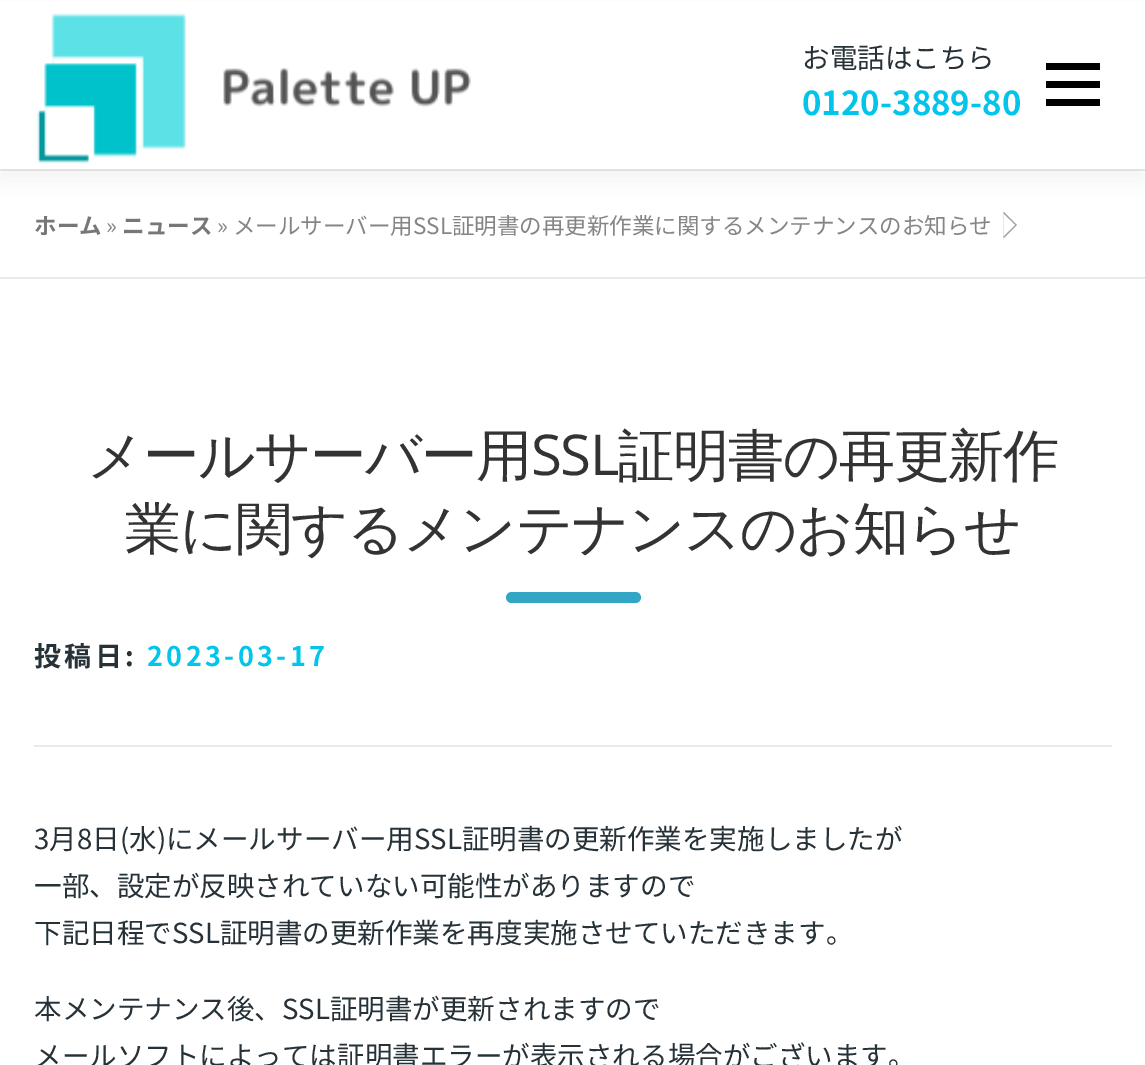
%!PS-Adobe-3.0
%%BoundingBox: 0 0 1145 1065
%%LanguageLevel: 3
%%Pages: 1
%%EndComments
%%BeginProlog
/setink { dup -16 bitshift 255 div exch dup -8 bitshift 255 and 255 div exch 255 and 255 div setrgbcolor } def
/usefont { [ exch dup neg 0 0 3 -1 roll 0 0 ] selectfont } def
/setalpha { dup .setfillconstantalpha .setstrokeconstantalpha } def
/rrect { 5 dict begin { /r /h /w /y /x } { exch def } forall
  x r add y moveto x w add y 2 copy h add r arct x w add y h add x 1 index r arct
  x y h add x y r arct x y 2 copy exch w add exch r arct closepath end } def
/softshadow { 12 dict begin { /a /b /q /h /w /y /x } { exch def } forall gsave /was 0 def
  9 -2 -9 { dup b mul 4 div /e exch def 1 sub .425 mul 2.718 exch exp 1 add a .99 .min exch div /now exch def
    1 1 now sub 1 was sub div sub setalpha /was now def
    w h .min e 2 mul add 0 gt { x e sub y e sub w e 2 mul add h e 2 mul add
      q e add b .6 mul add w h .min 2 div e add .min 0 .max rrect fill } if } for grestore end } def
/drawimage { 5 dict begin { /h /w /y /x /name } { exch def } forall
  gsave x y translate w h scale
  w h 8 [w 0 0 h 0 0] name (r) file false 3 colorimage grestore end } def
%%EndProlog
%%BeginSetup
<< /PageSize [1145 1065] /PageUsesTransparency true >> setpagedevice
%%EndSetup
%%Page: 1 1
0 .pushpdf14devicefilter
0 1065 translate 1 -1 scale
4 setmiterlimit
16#FFFFFF setink
0 0 1145 1065 rectfill
16#E9E9E9 setink
0 169 1145 2 rectfill
16#CCCCCC setink
1003.5 238.5 moveto 1003.5 211.5 lineto 1017 225 lineto closepath fill
0.2 setalpha
16#000000 setink
1003.5 238.5 moveto 1003.5 211.5 lineto 1017 225 lineto closepath fill
1 setalpha
16#323232 setink
0 11 1145 169 0 11 0.06 softshadow
16#FFFFFF setink
0 2 1145 167 rectfill
(img1.raw) 37 13 434 150 drawimage
/NotoSansJP-Regular 27.55 usefont
16#263238 setink
802 68 moveto (お電話はこちら) show
/NotoSansJP-Bold 33 usefont
16#03C4EB setink
802 115 moveto (0120-3889-80) show
[
    [1046 81 54 7 16#000000]
    [1046 63 54 7 16#000000]
    [1046 99 54 7 16#000000]
    [0 277 1145 2 16#E9E9E9]
] { aload pop setink rectfill } forall
/NotoSansJP-Bold 22.5 usefont
16#777777 setink
34 234 moveto (ホーム) show
/NotoSansJP-Regular 22.5 usefont
16#858585 setink
106 234 moveto (») show
/NotoSansJP-Bold 22.5 usefont
16#777777 setink
122 234 moveto (ニュース) show
16#FFFFFF setink
1003.5 236 moveto 1003.5 214 lineto 1015 225 lineto closepath fill
/NotoSansJP-Regular 22.5 usefont
16#858585 setink
217 234 moveto (» メールサーバー用SSL証明書の再更新作業に関するメンテナンスのお知らせ) show
/WenQuanYiZenHei-Medium 56.25 usefont
16#333333 setink
87 475 moveto -1.4 0 (メールサーバー用) ashow
/OpenSans-Regular 56.25 usefont
531 475 moveto -1.4 0 (SSL) ashow
/WenQuanYiZenHei-Medium 56.25 usefont
618 475 moveto -1.4 0 (証明書の再更新作) ashow
125 548 moveto -1.4 0 (業に関するメンテナンスのお知らせ) ashow
16#33A5C5 setink
506 592 135 11 5.5 rrect fill
16#E9E9E9 setink
34 745 1078 2 rectfill
/NotoSansJP-Bold 27 usefont
16#263238 setink
34 666 moveto 3.4 0 (投稿日:) ashow
16#03C4EB setink
147 666 moveto 3.4 0 (2023-03-17) ashow
/NotoSansJP-Regular 27.55 usefont
16#263238 setink
[
    [(3月8日\(水\)にメールサーバー用SSL証明書の更新作業を実施しましたが) 34 849]
    [(一部、設定が反映されていない可能性がありますので) 34 896]
    [(下記日程でSSL証明書の更新作業を再度実施させていただきます。) 34 943]
    [(本メンテナンス後、SSL証明書が更新されますので) 34 1019]
    [(メールソフトによっては証明書エラーが表示される場合がございます。) 34 1066]
] { aload pop moveto show } forall
.poppdf14devicefilter showpage
%%EOF
